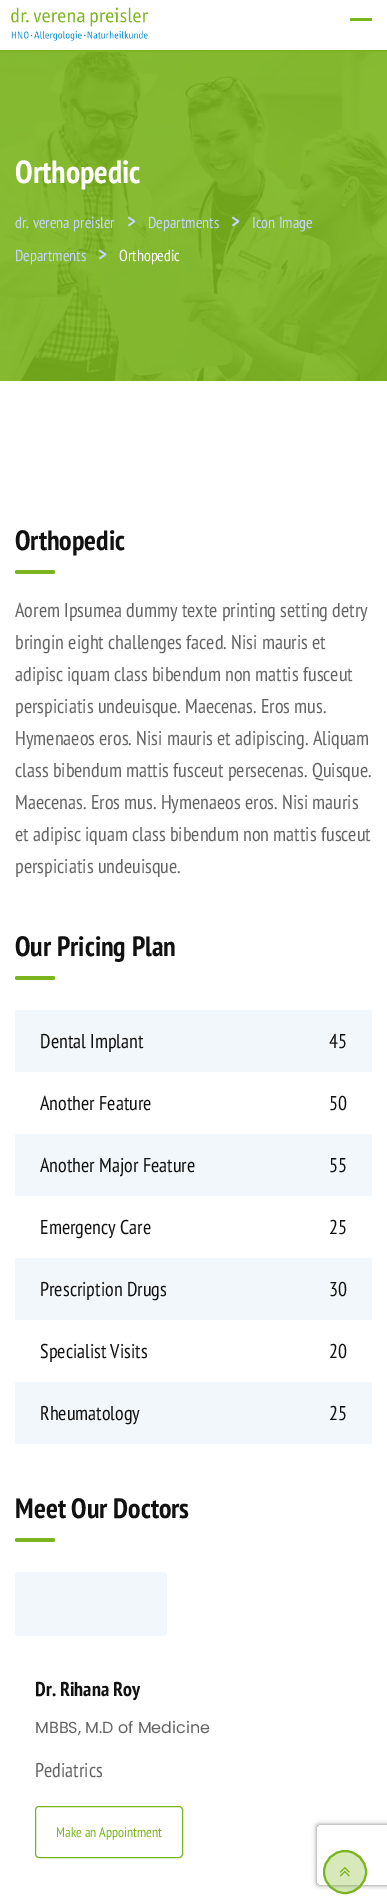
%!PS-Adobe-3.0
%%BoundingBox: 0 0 387 1899
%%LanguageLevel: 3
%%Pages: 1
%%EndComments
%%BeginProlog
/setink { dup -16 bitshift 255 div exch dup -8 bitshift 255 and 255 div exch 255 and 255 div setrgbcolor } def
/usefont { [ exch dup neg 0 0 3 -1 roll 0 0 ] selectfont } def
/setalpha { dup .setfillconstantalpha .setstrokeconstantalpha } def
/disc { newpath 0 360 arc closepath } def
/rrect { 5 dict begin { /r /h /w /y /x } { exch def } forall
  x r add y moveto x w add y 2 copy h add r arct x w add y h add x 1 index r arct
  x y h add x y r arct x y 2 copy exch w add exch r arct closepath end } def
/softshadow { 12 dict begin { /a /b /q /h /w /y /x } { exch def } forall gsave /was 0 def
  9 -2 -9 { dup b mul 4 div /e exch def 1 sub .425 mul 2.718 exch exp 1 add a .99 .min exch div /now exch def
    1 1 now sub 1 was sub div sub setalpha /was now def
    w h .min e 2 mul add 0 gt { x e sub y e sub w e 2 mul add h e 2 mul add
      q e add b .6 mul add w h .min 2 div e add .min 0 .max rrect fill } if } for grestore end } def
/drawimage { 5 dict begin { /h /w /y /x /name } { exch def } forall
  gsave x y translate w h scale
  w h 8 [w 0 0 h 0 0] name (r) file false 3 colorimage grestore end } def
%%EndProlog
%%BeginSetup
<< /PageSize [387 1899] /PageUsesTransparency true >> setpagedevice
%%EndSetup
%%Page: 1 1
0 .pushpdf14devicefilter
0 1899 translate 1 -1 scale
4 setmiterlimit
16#FFFFFF setink
0 0 387 1899 rectfill
16#7AB51D setink
0 50 387 2 rectfill
(img1.raw) 11 7 138 34 drawimage
350 18 22 3 rectfill
(img2.raw) 0 52 387 329 drawimage
/PTSansNarrow-Bold 32 usefont
16#FFFFFF setink
15 183 moveto (Orthopedic) show
/PTSansNarrow-Regular 16 usefont
16#C5D5FF setink
15 228 moveto (dr. verena preisler) show
/PTSansNarrow-Bold 20 usefont
127 228 moveto (>) show
/PTSansNarrow-Regular 16 usefont
148 228 moveto (Departments) show
/PTSansNarrow-Bold 20 usefont
231 228 moveto (>) show
/PTSansNarrow-Regular 16 usefont
252 228 moveto (Icon Image) show
15 261 moveto (Departments) show
/PTSansNarrow-Bold 20 usefont
98 261 moveto (>) show
/PTSansNarrow-Regular 16 usefont
16#FFFFFF setink
119 261 moveto (Orthopedic) show
/PTSansNarrow-Bold 28 usefont
16#111111 setink
15 550 moveto (Orthopedic) show
16#7AB51D setink
15 570 40 4 2 rrect fill
/PTSansNarrow-Regular 20 usefont
16#646464 setink
[
    [(Aorem Ipsumea dummy texte printing setting detry) 15 617]
    [(bringin eight challenges faced. Nisi mauris et) 15 649]
    [(adipisc iquam class bibendum non mattis fusceut) 15 681]
    [(perspiciatis undeuisque. Maecenas. Eros mus.) 15 713]
    [(Hymenaeos eros. Nisi mauris et adipiscing. Aliquam) 15 745]
    [(class bibendum mattis fusceut persecenas. Quisque.) 15 777]
    [(Maecenas. Eros mus. Hymenaeos eros. Nisi mauris) 15 809]
    [(et adipisc iquam class bibendum non mattis fusceut) 15 841]
    [(perspiciatis undeuisque.) 15 873]
] { aload pop moveto show } forall
/PTSansNarrow-Bold 28 usefont
16#111111 setink
15 956 moveto (Our Pricing Plan) show
16#7AB51D setink
15 976 40 4 2 rrect fill
16#F1F7FA setink
15 1010 357 62 rectfill
/PTSansNarrow-Regular 20 usefont
16#111111 setink
[
    [(Dental Implant) 40 1048]
    [(45) 329 1048]
    [(Another Feature) 40 1110]
    [(50) 329 1110]
] { aload pop moveto show } forall
16#F1F7FA setink
15 1134 357 62 rectfill
16#111111 setink
[
    [(Another Major Feature) 40 1172]
    [(55) 329 1172]
    [(Emergency Care) 40 1234]
    [(25) 329 1234]
] { aload pop moveto show } forall
16#F1F7FA setink
15 1258 357 62 rectfill
16#111111 setink
[
    [(Prescription Drugs) 40 1296]
    [(30) 329 1296]
    [(Specialist Visits) 40 1358]
    [(20) 329 1358]
] { aload pop moveto show } forall
16#F1F7FA setink
15 1382 357 62 rectfill
16#111111 setink
40 1420 moveto (Rheumatology) show
329 1420 moveto (25) show
/PTSansNarrow-Bold 28 usefont
15 1518 moveto (Meet Our Doctors) show
16#7AB51D setink
15 1538 40 4 2 rrect fill
16#F1F7FA setink
15 1572 152 64 4 rrect fill
/PTSansNarrow-Bold 20 usefont
16#111111 setink
35 1696 moveto (Dr. Rihana Roy) show
/Poppins-Regular 16 usefont
16#646464 setink
35 1733 moveto (MBBS, M.D of Medicine) show
/PTSansNarrow-Regular 20 usefont
35 1777 moveto (Pediatrics) show
16#7AB51D setink
35.5 1806.5 147 51 3.5 rrect stroke
/PTSansNarrow-Regular 14 usefont
56 1837 moveto (Make an Appointment) show
gsave
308 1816 moveto 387 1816 lineto 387 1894 lineto 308 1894 lineto closepath 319 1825 moveto 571 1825 lineto 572 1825 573 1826 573 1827 curveto 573 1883 lineto 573 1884 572 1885 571 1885 curveto 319 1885 lineto 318 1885 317 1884 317 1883 curveto 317 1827 lineto 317 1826 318 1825 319 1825 curveto closepath eoclip newpath
16#808080 setink
317 1825 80 60 2 2.5 1 softshadow
grestore
0.3 setalpha
345 1872 21 disc fill
1 setalpha
2 setlinewidth
345 1872 21 disc stroke
(img3.raw) 339 1866 11 11 drawimage
.poppdf14devicefilter showpage
%%EOF
